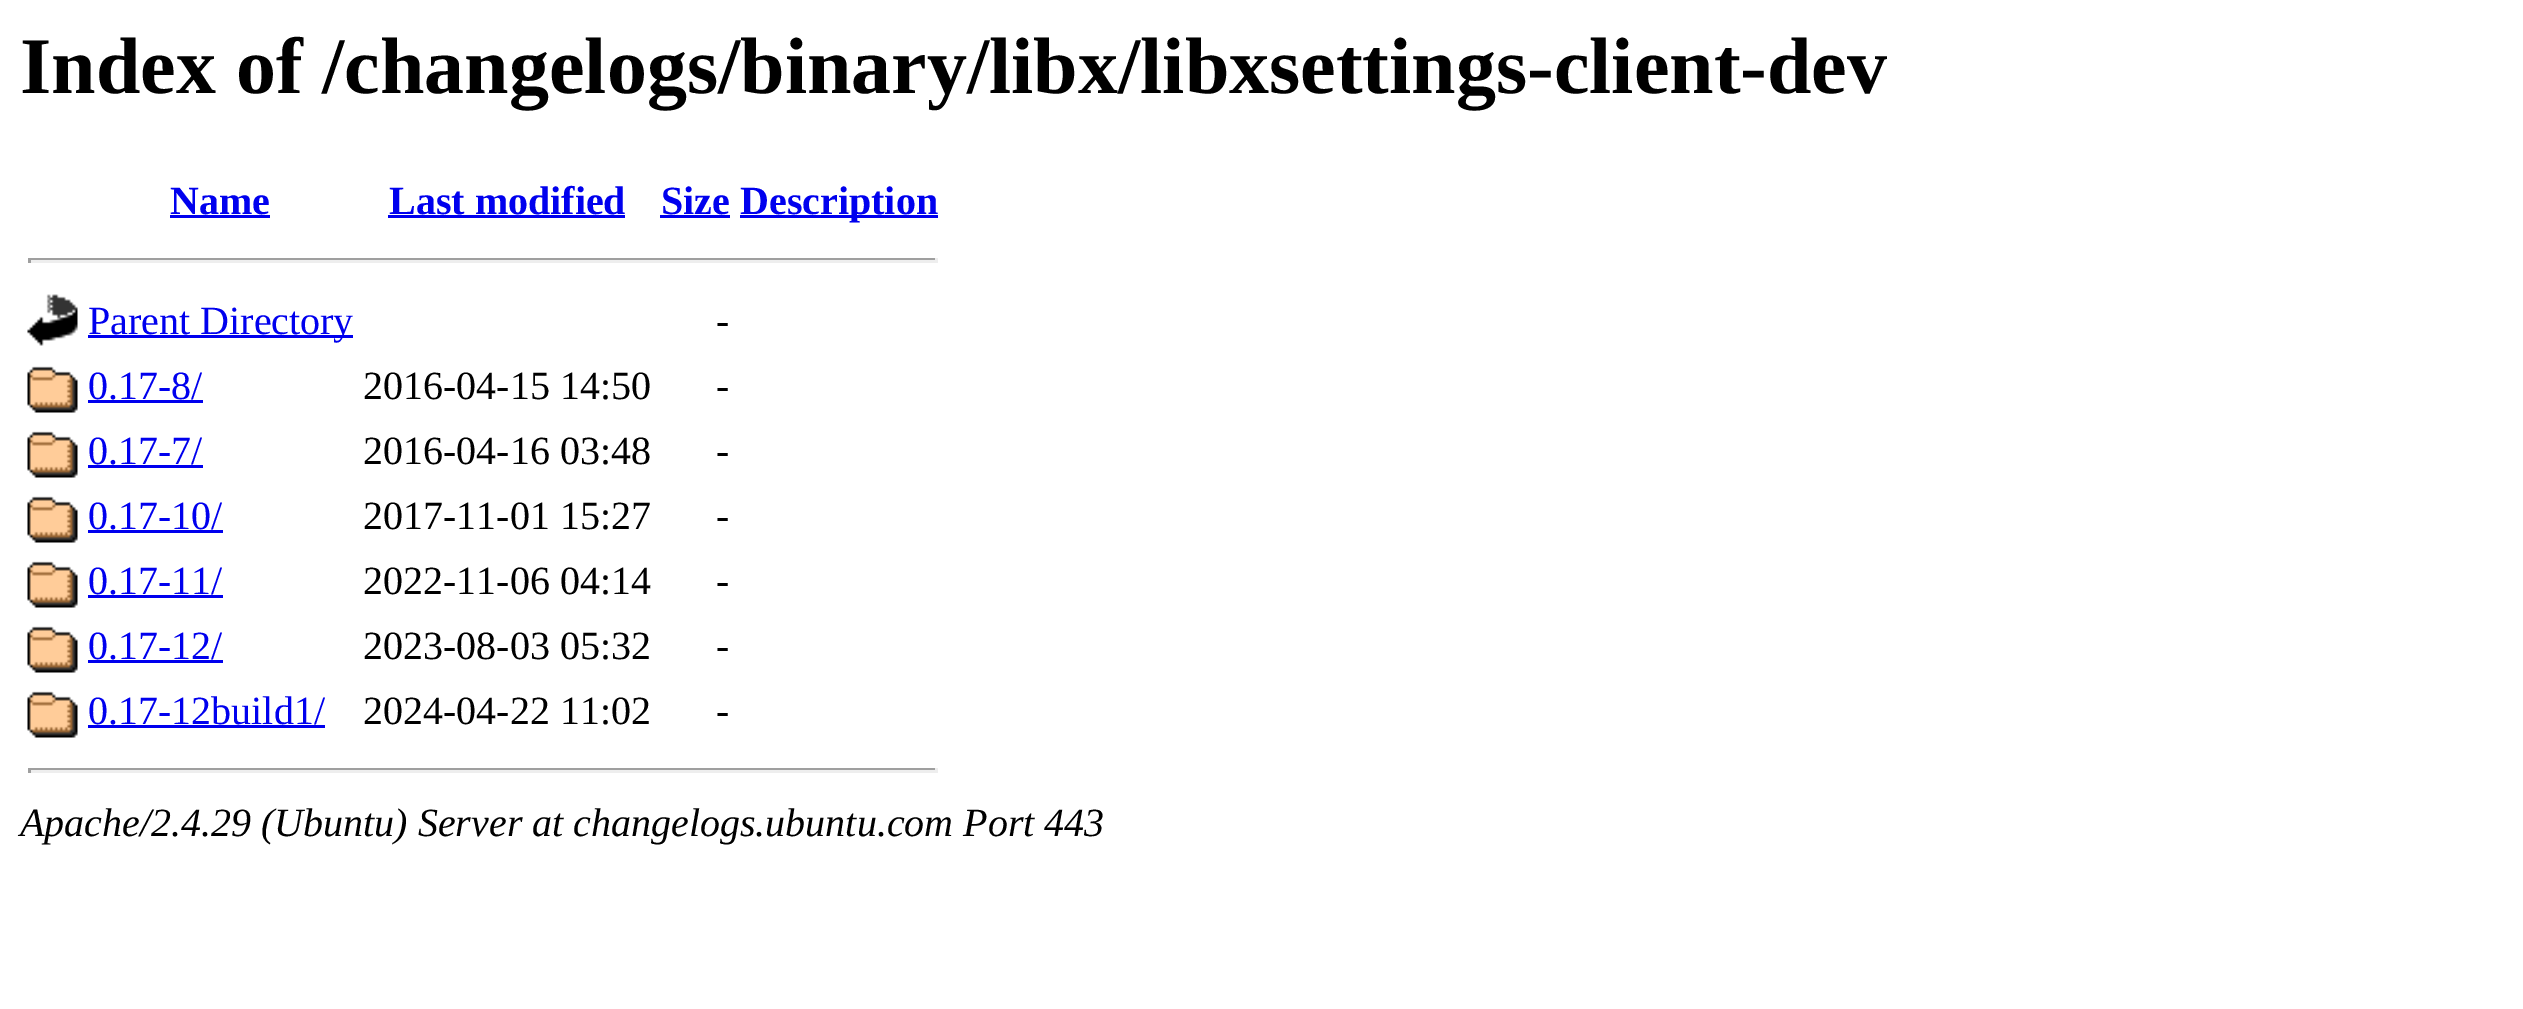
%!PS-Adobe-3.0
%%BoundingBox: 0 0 2523 1009
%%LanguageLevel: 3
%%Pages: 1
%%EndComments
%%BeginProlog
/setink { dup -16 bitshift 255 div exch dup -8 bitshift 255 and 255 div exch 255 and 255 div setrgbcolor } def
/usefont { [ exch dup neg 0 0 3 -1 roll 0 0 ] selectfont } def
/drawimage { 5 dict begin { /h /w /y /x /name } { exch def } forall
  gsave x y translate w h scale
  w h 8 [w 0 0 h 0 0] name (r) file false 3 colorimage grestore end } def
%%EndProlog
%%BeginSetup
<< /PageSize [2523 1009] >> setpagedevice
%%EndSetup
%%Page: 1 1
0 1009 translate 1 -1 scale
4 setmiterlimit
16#FFFFFF setink
0 0 2523 1009 rectfill
/LiberationSerif-Bold 80 usefont
16#000000 setink
20 93 moveto (Index of /changelogs/binary/libx/libxsettings-client-dev) show
/LiberationSerif-Bold 40 usefont
16#0000EE setink
170 214 moveto (Name) show
170 215 100 3 rectfill
389 214 moveto (Last modified) show
388 215 237 3 rectfill
661 214 moveto (Size) show
660 215 70 3 rectfill
740 215 198 3 rectfill
740 214 moveto (Description) show
[
    [28 258 910 2 16#9F9F9F]
    [935 258 3 5 16#EEEEEE]
    [28 260 910 3 16#EEEEEE]
    [28 258 3 5 16#9F9F9F]
] { aload pop setink rectfill } forall
(img1.raw) 27 294 51 52 drawimage
16#0000EE setink
88 335 265 3 rectfill
/LiberationSerif-Regular 40 usefont
88 334 moveto (Parent Directory) show
16#000000 setink
716 334 moveto (-) show
(img2.raw) 27 366 51 47 drawimage
16#0000EE setink
88 399 moveto (0.17-8/) show
88 400 115 3 rectfill
16#000000 setink
363 399 moveto (2016-04-15 14:50) show
716 399 moveto (-) show
(img2.raw) 27 431 51 47 drawimage
16#0000EE setink
88 464 moveto (0.17-7/) show
88 465 115 3 rectfill
16#000000 setink
363 464 moveto (2016-04-16 03:48) show
716 464 moveto (-) show
(img2.raw) 27 496 51 47 drawimage
16#0000EE setink
88 529 moveto (0.17-10/) show
88 530 135 3 rectfill
16#000000 setink
363 529 moveto (2017-11-01 15:27) show
716 529 moveto (-) show
(img3.raw) 27 561 51 47 drawimage
16#0000EE setink
88 594 moveto (0.17-11/) show
88 595 135 3 rectfill
16#000000 setink
363 594 moveto (2022-11-06 04:14) show
716 594 moveto (-) show
(img2.raw) 27 626 51 47 drawimage
16#0000EE setink
88 659 moveto (0.17-12/) show
88 660 135 3 rectfill
16#000000 setink
363 659 moveto (2023-08-03 05:32) show
716 659 moveto (-) show
(img2.raw) 27 691 51 47 drawimage
16#0000EE setink
88 724 moveto (0.17-12build1/) show
88 725 237 3 rectfill
16#000000 setink
363 724 moveto (2024-04-22 11:02) show
716 724 moveto (-) show
[
    [28 768 910 2 16#9F9F9F]
    [935 768 3 5 16#EEEEEE]
    [28 770 910 3 16#EEEEEE]
    [28 768 3 5 16#9F9F9F]
] { aload pop setink rectfill } forall
/LiberationSerif-Italic 40 usefont
16#000000 setink
20 836 moveto (Apache/2.4.29 \(Ubuntu\) Server at changelogs.ubuntu.com Port 443) show
showpage
%%EOF
